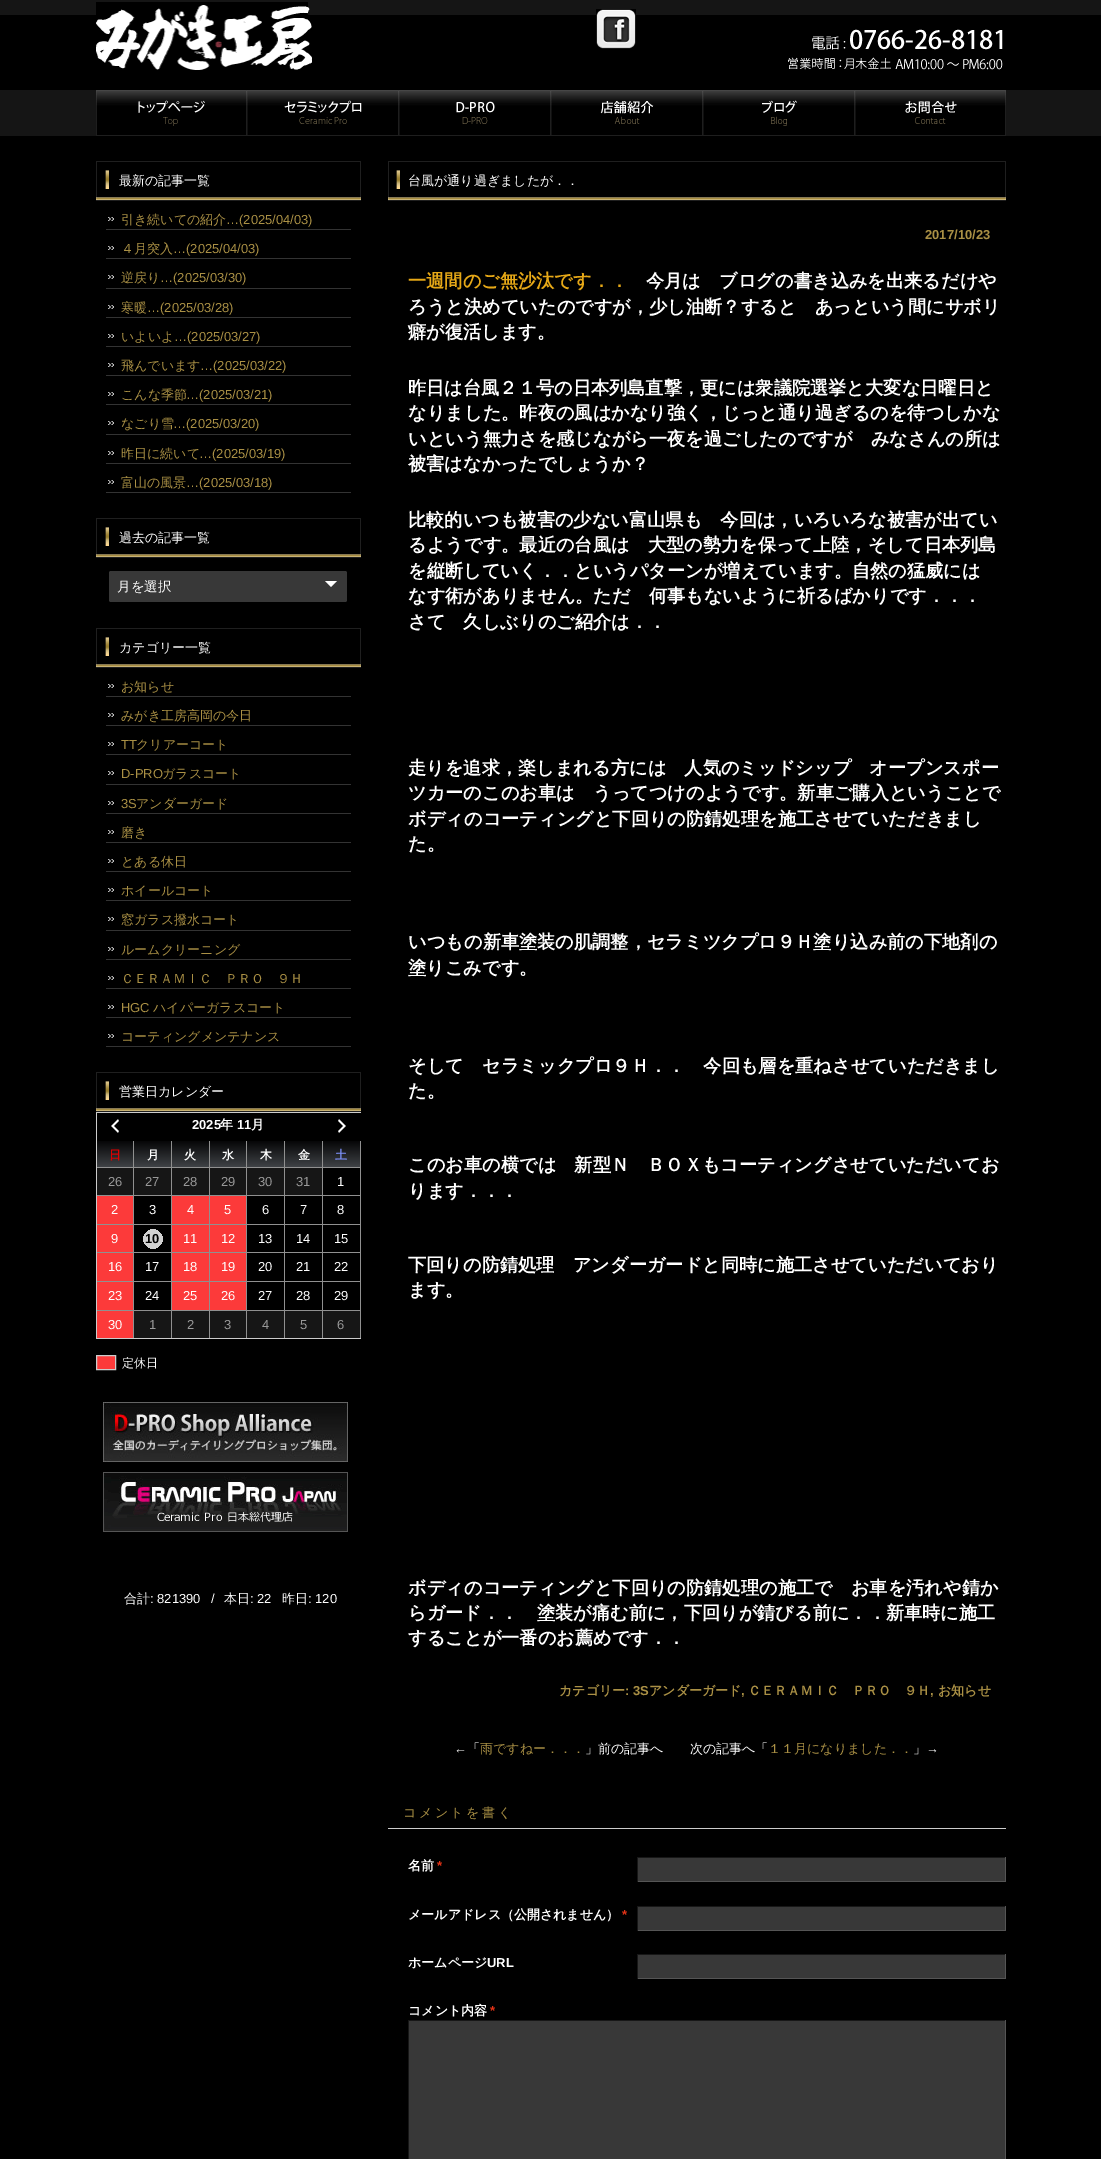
%!PS-Adobe-3.0
%%BoundingBox: 0 0 1101 2159
%%LanguageLevel: 3
%%Pages: 1
%%EndComments
%%BeginProlog
/setink { dup -16 bitshift 255 div exch dup -8 bitshift 255 and 255 div exch 255 and 255 div setrgbcolor } def
/usefont { [ exch dup neg 0 0 3 -1 roll 0 0 ] selectfont } def
/rrect { 5 dict begin { /r /h /w /y /x } { exch def } forall
  x r add y moveto x w add y 2 copy h add r arct x w add y h add x 1 index r arct
  x y h add x y r arct x y 2 copy exch w add exch r arct closepath end } def
/drawimage { 5 dict begin { /h /w /y /x /name } { exch def } forall
  gsave x y translate w h scale
  w h 8 [w 0 0 h 0 0] name (r) file false 3 colorimage grestore end } def
%%EndProlog
%%BeginSetup
<< /PageSize [1101 2159] >> setpagedevice
%%EndSetup
%%Page: 1 1
0 2159 translate 1 -1 scale
4 setmiterlimit
16#000000 setink
0 0 1101 2159 rectfill
(img1.raw) 0 0 1101 136 drawimage
(img2.raw) 788 29 215 41 drawimage
(img3.raw) 96 2 216 68 drawimage
(img4.raw) 596 9 40 40 drawimage
(img5.raw) 96 90 910 46 drawimage
(img6.raw) 96 161 265 40 drawimage
/WenQuanYiZenHei-Medium 13 usefont
16#FFFFFF setink
119 185 moveto (最新の記事一覧) show
16#333333 setink
106 229 245 1 rectfill
(img7.raw) 108 217 6 4 drawimage
16#AA9045 setink
121 224 moveto (引き続いての紹介) show
/LiberationSans-Regular 13 usefont
226 224 moveto (…\(2025/04/03\)) show
16#333333 setink
106 258 245 1 rectfill
(img7.raw) 108 246 6 4 drawimage
/WenQuanYiZenHei-Medium 13 usefont
16#AA9045 setink
121 253 moveto (４月突入) show
/LiberationSans-Regular 13 usefont
173 253 moveto (…\(2025/04/03\)) show
16#333333 setink
106 288 245 1 rectfill
(img7.raw) 108 275 6 4 drawimage
/WenQuanYiZenHei-Medium 13 usefont
16#AA9045 setink
121 282 moveto (逆戻り) show
/LiberationSans-Regular 13 usefont
160 282 moveto (…\(2025/03/30\)) show
16#333333 setink
106 317 245 1 rectfill
(img7.raw) 108 305 6 4 drawimage
/WenQuanYiZenHei-Medium 13 usefont
16#AA9045 setink
121 312 moveto (寒暖) show
/LiberationSans-Regular 13 usefont
147 312 moveto (…\(2025/03/28\)) show
16#333333 setink
106 346 245 1 rectfill
(img7.raw) 108 334 6 4 drawimage
/WenQuanYiZenHei-Medium 13 usefont
16#AA9045 setink
121 341 moveto (いよいよ) show
/LiberationSans-Regular 13 usefont
174 341 moveto (…\(2025/03/27\)) show
16#333333 setink
106 375 245 1 rectfill
(img7.raw) 108 363 6 4 drawimage
/WenQuanYiZenHei-Medium 13 usefont
16#AA9045 setink
121 370 moveto (飛んでいます) show
/LiberationSans-Regular 13 usefont
200 370 moveto (…\(2025/03/22\)) show
16#333333 setink
106 404 245 1 rectfill
(img7.raw) 108 392 6 4 drawimage
/WenQuanYiZenHei-Medium 13 usefont
16#AA9045 setink
121 399 moveto (こんな季節) show
/LiberationSans-Regular 13 usefont
186 399 moveto (…\(2025/03/21\)) show
16#333333 setink
106 434 245 1 rectfill
(img7.raw) 108 421 6 4 drawimage
/WenQuanYiZenHei-Medium 13 usefont
16#AA9045 setink
121 428 moveto (なごり雪) show
/LiberationSans-Regular 13 usefont
173 428 moveto (…\(2025/03/20\)) show
16#333333 setink
106 463 245 1 rectfill
(img7.raw) 108 451 6 4 drawimage
/WenQuanYiZenHei-Medium 13 usefont
16#AA9045 setink
121 458 moveto (昨日に続いて) show
/LiberationSans-Regular 13 usefont
199 458 moveto (…\(2025/03/19\)) show
16#333333 setink
106 492 245 1 rectfill
(img7.raw) 108 480 6 4 drawimage
/WenQuanYiZenHei-Medium 13 usefont
16#AA9045 setink
121 487 moveto (富山の風景) show
/LiberationSans-Regular 13 usefont
186 487 moveto (…\(2025/03/18\)) show
(img6.raw) 96 518 265 40 drawimage
/WenQuanYiZenHei-Medium 13 usefont
16#FFFFFF setink
119 542 moveto (過去の記事一覧) show
16#383838 setink
109 571 238 31 2 rrect fill
/WenQuanYiZenHei-Medium 13.5 usefont
16#FFFFFF setink
117 591 moveto (月を選択) show
325 581 moveto 337 581 lineto 331 587 lineto closepath fill
(img6.raw) 96 628 265 40 drawimage
/WenQuanYiZenHei-Medium 13 usefont
119 652 moveto (カテゴリー一覧) show
16#333333 setink
106 696 245 1 rectfill
(img7.raw) 108 684 6 4 drawimage
16#AA9045 setink
121 691 moveto (お知らせ) show
16#333333 setink
106 725 245 1 rectfill
(img7.raw) 108 713 6 4 drawimage
16#AA9045 setink
121 720 moveto (みがき工房高岡の今日) show
16#333333 setink
106 754 245 1 rectfill
(img7.raw) 108 742 6 4 drawimage
/LiberationSans-Regular 13 usefont
16#AA9045 setink
121 749 moveto (TT) show
/WenQuanYiZenHei-Medium 13 usefont
136 749 moveto (クリアーコート) show
16#333333 setink
106 784 245 1 rectfill
(img7.raw) 108 771 6 4 drawimage
/LiberationSans-Regular 13 usefont
16#AA9045 setink
121 778 moveto (D-PRO) show
/WenQuanYiZenHei-Medium 13 usefont
162 778 moveto (ガラスコート) show
16#333333 setink
106 813 245 1 rectfill
(img7.raw) 108 801 6 4 drawimage
/LiberationSans-Regular 13 usefont
16#AA9045 setink
121 808 moveto (3S) show
/WenQuanYiZenHei-Medium 13 usefont
136 808 moveto (アンダーガード) show
16#333333 setink
106 842 245 1 rectfill
(img7.raw) 108 830 6 4 drawimage
16#AA9045 setink
121 837 moveto (磨き) show
16#333333 setink
106 871 245 1 rectfill
(img7.raw) 108 859 6 4 drawimage
16#AA9045 setink
121 866 moveto (とある休日) show
16#333333 setink
106 900 245 1 rectfill
(img7.raw) 108 888 6 4 drawimage
16#AA9045 setink
121 895 moveto (ホイールコート) show
16#333333 setink
106 930 245 1 rectfill
(img7.raw) 108 917 6 4 drawimage
16#AA9045 setink
121 924 moveto (窓ガラス撥水コート) show
16#333333 setink
106 959 245 1 rectfill
(img7.raw) 108 947 6 4 drawimage
16#AA9045 setink
121 954 moveto (ルームクリーニング) show
16#333333 setink
106 988 245 1 rectfill
(img7.raw) 108 976 6 4 drawimage
16#AA9045 setink
121 983 moveto (ＣＥＲＡＭＩＣ　ＰＲＯ　９Ｈ) show
16#333333 setink
106 1017 245 1 rectfill
(img7.raw) 108 1005 6 4 drawimage
/LiberationSans-Regular 13 usefont
16#AA9045 setink
121 1012 moveto (HGC) show
/WenQuanYiZenHei-Medium 13 usefont
153 1012 moveto (ハイパーガラスコート) show
16#333333 setink
106 1046 245 1 rectfill
(img7.raw) 108 1034 6 4 drawimage
16#AA9045 setink
121 1041 moveto (コーティングメンテナンス) show
(img6.raw) 96 1072 265 40 drawimage
16#FFFFFF setink
119 1096 moveto (営業日カレンダー) show
[
    [96 1112 265 1 16#CCCCCC]
    [96 1338 265 1 16#CCCCCC]
    [96 1112 1 227 16#CCCCCC]
] { aload pop setink rectfill } forall
(img8.raw) 111 1119 8 14 drawimage
/LiberationSans-Bold 13 usefont
16#FFFFFF setink
192 1129 moveto (2025) show
/WenQuanYiZenHei-Bold 13 usefont
220 1129 moveto (年) show
/LiberationSans-Bold 13 usefont
237 1129 moveto (11) show
/WenQuanYiZenHei-Bold 13 usefont
251 1129 moveto (月) show
(img9.raw) 338 1119 8 14 drawimage
gsave 97 1141 moveto 133 1141 lineto 133 1167 lineto 97 1167 lineto closepath clip newpath
<< /ShadingType 2 /ColorSpace /DeviceRGB /Coords [115 1141 115 1167] /Extend [true true] /Function << /FunctionType 2 /Domain [0 1] /C0 [0.024 0.024 0.027] /C1 [0.247 0.259 0.275] /N 1 >> >> shfill grestore
16#909090 setink
133 1141 1 26 rectfill
/WenQuanYiZenHei-Bold 12 usefont
16#DD0000 setink
109 1159 moveto (日) show
gsave 134 1141 moveto 171 1141 lineto 171 1167 lineto 134 1167 lineto closepath clip newpath
<< /ShadingType 2 /ColorSpace /DeviceRGB /Coords [153 1141 153 1167] /Extend [true true] /Function << /FunctionType 2 /Domain [0 1] /C0 [0.024 0.024 0.027] /C1 [0.247 0.259 0.275] /N 1 >> >> shfill grestore
16#909090 setink
171 1141 1 26 rectfill
16#FFFFFF setink
147 1159 moveto (月) show
gsave 172 1141 moveto 209 1141 lineto 209 1167 lineto 172 1167 lineto closepath clip newpath
<< /ShadingType 2 /ColorSpace /DeviceRGB /Coords [191 1141 191 1167] /Extend [true true] /Function << /FunctionType 2 /Domain [0 1] /C0 [0.024 0.024 0.027] /C1 [0.247 0.259 0.275] /N 1 >> >> shfill grestore
16#909090 setink
209 1141 1 26 rectfill
16#FFFFFF setink
184 1159 moveto (火) show
gsave 210 1141 moveto 246 1141 lineto 246 1167 lineto 210 1167 lineto closepath clip newpath
<< /ShadingType 2 /ColorSpace /DeviceRGB /Coords [228 1141 228 1167] /Extend [true true] /Function << /FunctionType 2 /Domain [0 1] /C0 [0.024 0.024 0.027] /C1 [0.247 0.259 0.275] /N 1 >> >> shfill grestore
16#909090 setink
246 1141 1 26 rectfill
16#FFFFFF setink
222 1159 moveto (水) show
gsave 247 1141 moveto 284 1141 lineto 284 1167 lineto 247 1167 lineto closepath clip newpath
<< /ShadingType 2 /ColorSpace /DeviceRGB /Coords [266 1141 266 1167] /Extend [true true] /Function << /FunctionType 2 /Domain [0 1] /C0 [0.024 0.024 0.027] /C1 [0.247 0.259 0.275] /N 1 >> >> shfill grestore
16#909090 setink
284 1141 1 26 rectfill
16#FFFFFF setink
260 1159 moveto (木) show
gsave 285 1141 moveto 322 1141 lineto 322 1167 lineto 285 1167 lineto closepath clip newpath
<< /ShadingType 2 /ColorSpace /DeviceRGB /Coords [304 1141 304 1167] /Extend [true true] /Function << /FunctionType 2 /Domain [0 1] /C0 [0.024 0.024 0.027] /C1 [0.247 0.259 0.275] /N 1 >> >> shfill grestore
16#909090 setink
322 1141 1 26 rectfill
16#FFFFFF setink
298 1159 moveto (金) show
gsave 323 1141 moveto 360 1141 lineto 360 1167 lineto 323 1167 lineto closepath clip newpath
<< /ShadingType 2 /ColorSpace /DeviceRGB /Coords [342 1141 342 1167] /Extend [true true] /Function << /FunctionType 2 /Domain [0 1] /C0 [0.024 0.024 0.027] /C1 [0.247 0.259 0.275] /N 1 >> >> shfill grestore
16#909090 setink
360 1141 1 26 rectfill
16#7F94FF setink
335 1159 moveto (土) show
[
    [97 1167 264 1 16#909090]
    [133 1167 1 28 16#909090]
    [97 1168 36 27 16#161616]
] { aload pop setink rectfill } forall
/LiberationSans-Regular 13 usefont
16#999999 setink
108 1186 moveto (26) show
16#909090 setink
171 1167 1 28 rectfill
16#161616 setink
134 1168 37 27 rectfill
16#999999 setink
145 1186 moveto (27) show
16#909090 setink
209 1167 1 28 rectfill
16#161616 setink
172 1168 37 27 rectfill
16#999999 setink
183 1186 moveto (28) show
16#909090 setink
246 1167 1 28 rectfill
16#161616 setink
210 1168 36 27 rectfill
16#999999 setink
221 1186 moveto (29) show
16#909090 setink
284 1167 1 28 rectfill
16#161616 setink
247 1168 37 27 rectfill
16#999999 setink
258 1186 moveto (30) show
16#909090 setink
322 1167 1 28 rectfill
16#161616 setink
285 1168 37 27 rectfill
16#999999 setink
296 1186 moveto (31) show
16#909090 setink
360 1167 1 28 rectfill
16#FFFFFF setink
337 1186 moveto (1) show
[
    [97 1195 264 1 16#909090]
    [133 1195 1 29 16#909090]
    [97 1196 36 28 16#FC3A3A]
] { aload pop setink rectfill } forall
16#FFFFFF setink
111 1214 moveto (2) show
16#909090 setink
171 1195 1 29 rectfill
16#FFFFFF setink
149 1214 moveto (3) show
16#909090 setink
209 1195 1 29 rectfill
16#FC3A3A setink
172 1196 37 28 rectfill
16#FFFFFF setink
187 1214 moveto (4) show
16#909090 setink
246 1195 1 29 rectfill
16#FC3A3A setink
210 1196 36 28 rectfill
16#FFFFFF setink
224 1214 moveto (5) show
16#909090 setink
284 1195 1 29 rectfill
16#FFFFFF setink
262 1214 moveto (6) show
16#909090 setink
322 1195 1 29 rectfill
16#FFFFFF setink
300 1214 moveto (7) show
16#909090 setink
360 1195 1 29 rectfill
16#FFFFFF setink
337 1214 moveto (8) show
[
    [97 1224 264 1 16#909090]
    [133 1224 1 28 16#909090]
    [97 1225 36 27 16#FC3A3A]
] { aload pop setink rectfill } forall
16#FFFFFF setink
111 1243 moveto (9) show
16#909090 setink
171 1224 1 28 rectfill
gsave 143 1229 moveto 163 1229 lineto 163 1249 lineto 143 1249 lineto closepath clip newpath 153 1239 translate 994 994 scale
<< /ShadingType 3 /ColorSpace /DeviceRGB /Coords [0 0 0 0 0 1] /Extend [true true] /Function << /FunctionType 3 /Domain [0 1] /Functions [<< /FunctionType 2 /Domain [0 1] /C0 [0.824 0.824 0.824] /C1 [0.824 0.824 0.824] /N 1 >> << /FunctionType 2 /Domain [0 1] /C0 [0 0 0] /C1 [0 0 0] /N 1 >> << /FunctionType 2 /Domain [0 1] /C0 [0 0 0] /C1 [0 0 0] /N 1 >>] /Bounds [0.01 0.02] /Encode [0 1 0 1 0 1] >> >> shfill grestore
/LiberationSans-Bold 13 usefont
16#000000 setink
145 1243 moveto (10) show
16#909090 setink
209 1224 1 28 rectfill
16#FC3A3A setink
172 1225 37 27 rectfill
/LiberationSans-Regular 13 usefont
16#FFFFFF setink
183 1243 moveto (11) show
16#909090 setink
246 1224 1 28 rectfill
16#FC3A3A setink
210 1225 36 27 rectfill
16#FFFFFF setink
221 1243 moveto (12) show
16#909090 setink
284 1224 1 28 rectfill
16#FFFFFF setink
258 1243 moveto (13) show
16#909090 setink
322 1224 1 28 rectfill
16#FFFFFF setink
296 1243 moveto (14) show
16#909090 setink
360 1224 1 28 rectfill
16#FFFFFF setink
334 1243 moveto (15) show
[
    [97 1252 264 1 16#909090]
    [133 1252 1 29 16#909090]
    [97 1253 36 28 16#FC3A3A]
] { aload pop setink rectfill } forall
16#FFFFFF setink
108 1271 moveto (16) show
16#909090 setink
171 1252 1 29 rectfill
16#FFFFFF setink
145 1271 moveto (17) show
16#909090 setink
209 1252 1 29 rectfill
16#FC3A3A setink
172 1253 37 28 rectfill
16#FFFFFF setink
183 1271 moveto (18) show
16#909090 setink
246 1252 1 29 rectfill
16#FC3A3A setink
210 1253 36 28 rectfill
16#FFFFFF setink
221 1271 moveto (19) show
16#909090 setink
284 1252 1 29 rectfill
16#FFFFFF setink
258 1271 moveto (20) show
16#909090 setink
322 1252 1 29 rectfill
16#FFFFFF setink
296 1271 moveto (21) show
16#909090 setink
360 1252 1 29 rectfill
16#FFFFFF setink
334 1271 moveto (22) show
[
    [97 1281 264 1 16#909090]
    [133 1281 1 29 16#909090]
    [97 1282 36 28 16#FC3A3A]
] { aload pop setink rectfill } forall
16#FFFFFF setink
108 1300 moveto (23) show
16#909090 setink
171 1281 1 29 rectfill
16#FFFFFF setink
145 1300 moveto (24) show
16#909090 setink
209 1281 1 29 rectfill
16#FC3A3A setink
172 1282 37 28 rectfill
16#FFFFFF setink
183 1300 moveto (25) show
16#909090 setink
246 1281 1 29 rectfill
16#FC3A3A setink
210 1282 36 28 rectfill
16#FFFFFF setink
221 1300 moveto (26) show
16#909090 setink
284 1281 1 29 rectfill
16#FFFFFF setink
258 1300 moveto (27) show
16#909090 setink
322 1281 1 29 rectfill
16#FFFFFF setink
296 1300 moveto (28) show
16#909090 setink
360 1281 1 29 rectfill
16#FFFFFF setink
334 1300 moveto (29) show
[
    [97 1310 264 1 16#909090]
    [133 1310 1 28 16#909090]
    [97 1311 36 27 16#FC3A3A]
] { aload pop setink rectfill } forall
16#FFFFFF setink
108 1329 moveto (30) show
16#909090 setink
171 1310 1 28 rectfill
16#161616 setink
134 1311 37 27 rectfill
16#999999 setink
149 1329 moveto (1) show
16#909090 setink
209 1310 1 28 rectfill
16#161616 setink
172 1311 37 27 rectfill
16#999999 setink
187 1329 moveto (2) show
16#909090 setink
246 1310 1 28 rectfill
16#161616 setink
210 1311 36 27 rectfill
16#999999 setink
224 1329 moveto (3) show
16#909090 setink
284 1310 1 28 rectfill
16#161616 setink
247 1311 37 27 rectfill
16#999999 setink
262 1329 moveto (4) show
16#909090 setink
322 1310 1 28 rectfill
16#161616 setink
285 1311 37 27 rectfill
16#999999 setink
300 1329 moveto (5) show
16#909090 setink
360 1310 1 28 rectfill
16#161616 setink
323 1311 37 27 rectfill
16#999999 setink
337 1329 moveto (6) show
16#FC3A3A setink
96.5 1355.5 moveto 115.5 1355.5 lineto 115.5 1369.5 lineto 96.5 1369.5 lineto closepath gsave fill grestore
16#CCCCCC setink
stroke
/WenQuanYiZenHei-Medium 12 usefont
16#FFFFFF setink
122 1367 moveto (定休日) show
(img10.raw) 103 1402 245 60 drawimage
(img11.raw) 103 1472 245 60 drawimage
/WenQuanYiZenHei-Medium 13 usefont
124 1603 moveto (合計) show
/LiberationSans-Regular 13 usefont
150 1603 moveto (: 821390) show
211 1603 moveto (/) show
/WenQuanYiZenHei-Medium 13 usefont
224 1603 moveto (本日) show
/LiberationSans-Regular 13 usefont
250 1603 moveto (: 22) show
/WenQuanYiZenHei-Medium 13 usefont
282 1603 moveto (昨日) show
/LiberationSans-Regular 13 usefont
308 1603 moveto (: 120) show
(img12.raw) 388 161 618 40 drawimage
/WenQuanYiZenHei-Medium 13 usefont
408 185 moveto (台風が通り過ぎましたが．．) show
/LiberationSans-Bold 13 usefont
16#AA9045 setink
925 239 moveto (2017/10/23) show
/WenQuanYiZenHei-Bold 18.2 usefont
16#E6A817 setink
408 287 moveto (一週間のご無沙汰です．．) show
16#FFFFFF setink
[
    [(今月は　ブログの書き込みを出来るだけや) 646 287]
    [(ろうと決めていたのですが，少し油断？すると　あっという間にサボリ) 408 313]
    [(癖が復活します。) 408 338]
    [(昨日は台風２１号の日本列島直撃，更には衆議院選挙と大変な日曜日と) 408 394]
    [(なりました。昨夜の風はかなり強く，じっと通り過ぎるのを待つしかな) 408 419]
    [(いという無力さを感じながら一夜を過ごしたのですが　みなさんの所は) 408 445]
    [(被害はなかったでしょうか？) 408 470]
    [(比較的いつも被害の少ない富山県も　今回は，いろいろな被害が出てい) 408 526]
    [(るようです。最近の台風は　大型の勢力を保って上陸，そして日本列島) 408 551]
    [(を縦断していく．．というパターンが増えています。自然の猛威には) 408 577]
    [(なす術がありません。ただ　何事もないように祈るばかりです．．．) 408 602]
    [(さて　久しぶりのご紹介は．．) 408 628]
    [(走りを追求，楽しまれる方には　人気のミッドシップ　オープンスポー) 408 774]
    [(ツカーのこのお車は　うってつけのようです。新車ご購入ということで) 408 799]
    [(ボディのコーティングと下回りの防錆処理を施工させていただきまし) 408 825]
    [(た。) 408 850]
    [(いつもの新車塗装の肌調整，セラミツクプロ９Ｈ塗り込み前の下地剤の) 408 948]
    [(塗りこみです。) 408 974]
    [(そして　セラミックプロ９Ｈ．．　今回も層を重ねさせていただきまし) 408 1072]
    [(た。) 408 1097]
    [(このお車の横では　新型Ｎ　ＢＯＸもコーティングさせていただいてお) 408 1171]
    [(ります．．．) 408 1197]
    [(下回りの防錆処理　アンダーガードと同時に施工させていただいており) 408 1271]
    [(ます。) 408 1296]
    [(ボディのコーティングと下回りの防錆処理の施工で　お車を汚れや錆か) 408 1594]
    [(らガード．．　塗装が痛む前に，下回りが錆びる前に．．新車時に施工) 408 1619]
    [(することが一番のお薦めです．．) 408 1644]
] { aload pop moveto show } forall
/WenQuanYiZenHei-Bold 13 usefont
16#AA9045 setink
559 1695 moveto (カテゴリー) show
/LiberationSans-Bold 13 usefont
625 1695 moveto (: 3S) show
/WenQuanYiZenHei-Bold 13 usefont
649 1695 moveto (アンダーガード) show
/LiberationSans-Bold 13 usefont
741 1695 moveto (,) show
/WenQuanYiZenHei-Bold 13 usefont
748 1695 moveto (ＣＥＲＡＭＩＣ　ＰＲＯ　９Ｈ) show
/LiberationSans-Bold 13 usefont
930 1695 moveto (,) show
/WenQuanYiZenHei-Bold 13 usefont
938 1695 moveto (お知らせ) show
/LiberationSans-Regular 13 usefont
16#FFFFFF setink
454 1753 moveto (←) show
/WenQuanYiZenHei-Medium 13 usefont
467 1753 moveto (「) show
16#AA9045 setink
480 1753 moveto (雨ですねー．．．) show
16#FFFFFF setink
585 1753 moveto (」前の記事へ　　次の記事へ「) show
16#AA9045 setink
768 1753 moveto (１１月になりました．．) show
16#FFFFFF setink
913 1753 moveto (」) show
/LiberationSans-Regular 13 usefont
926 1753 moveto (→) show
16#CCCCCC setink
388 1828 618 1 rectfill
/WenQuanYiZenHei-Medium 13 usefont
16#AA9045 setink
403 1817 moveto 2.5 0 (コメントを書く) ashow
/WenQuanYiZenHei-Bold 13 usefont
16#FFFFFF setink
408 1870 moveto (名前) show
/LiberationSans-Bold 13 usefont
16#E63317 setink
437 1870 moveto (*) show
[
    [638 1858 367 23 16#383838]
    [637 1857 369 1 16#171717]
    [1005 1857 1 25 16#555555]
    [637 1881 369 1 16#555555]
    [637 1857 1 25 16#171717]
] { aload pop setink rectfill } forall
/WenQuanYiZenHei-Bold 13 usefont
16#FFFFFF setink
408 1919 moveto (メールアドレス（公開されません）) show
/LiberationSans-Bold 13 usefont
16#E63317 setink
622 1919 moveto (*) show
[
    [638 1907 367 23 16#383838]
    [637 1906 369 1 16#171717]
    [1005 1906 1 25 16#555555]
    [637 1930 369 1 16#555555]
    [637 1906 1 25 16#171717]
] { aload pop setink rectfill } forall
/WenQuanYiZenHei-Bold 13 usefont
16#FFFFFF setink
408 1967 moveto (ホームページ) show
/LiberationSans-Bold 13 usefont
487 1967 moveto (URL) show
[
    [638 1955 367 23 16#383838]
    [637 1954 369 1 16#171717]
    [1005 1954 1 25 16#555555]
    [637 1978 369 1 16#555555]
    [637 1954 1 25 16#171717]
] { aload pop setink rectfill } forall
/WenQuanYiZenHei-Bold 13 usefont
16#FFFFFF setink
408 2015 moveto (コメント内容) show
/LiberationSans-Bold 13 usefont
16#E63317 setink
490 2015 moveto (*) show
[
    [409 2021 596 138 16#383838]
    [408 2020 598 1 16#171717]
    [1005 2020 1 139 16#555555]
    [408 2020 1 139 16#171717]
] { aload pop setink rectfill } forall
showpage
%%EOF
